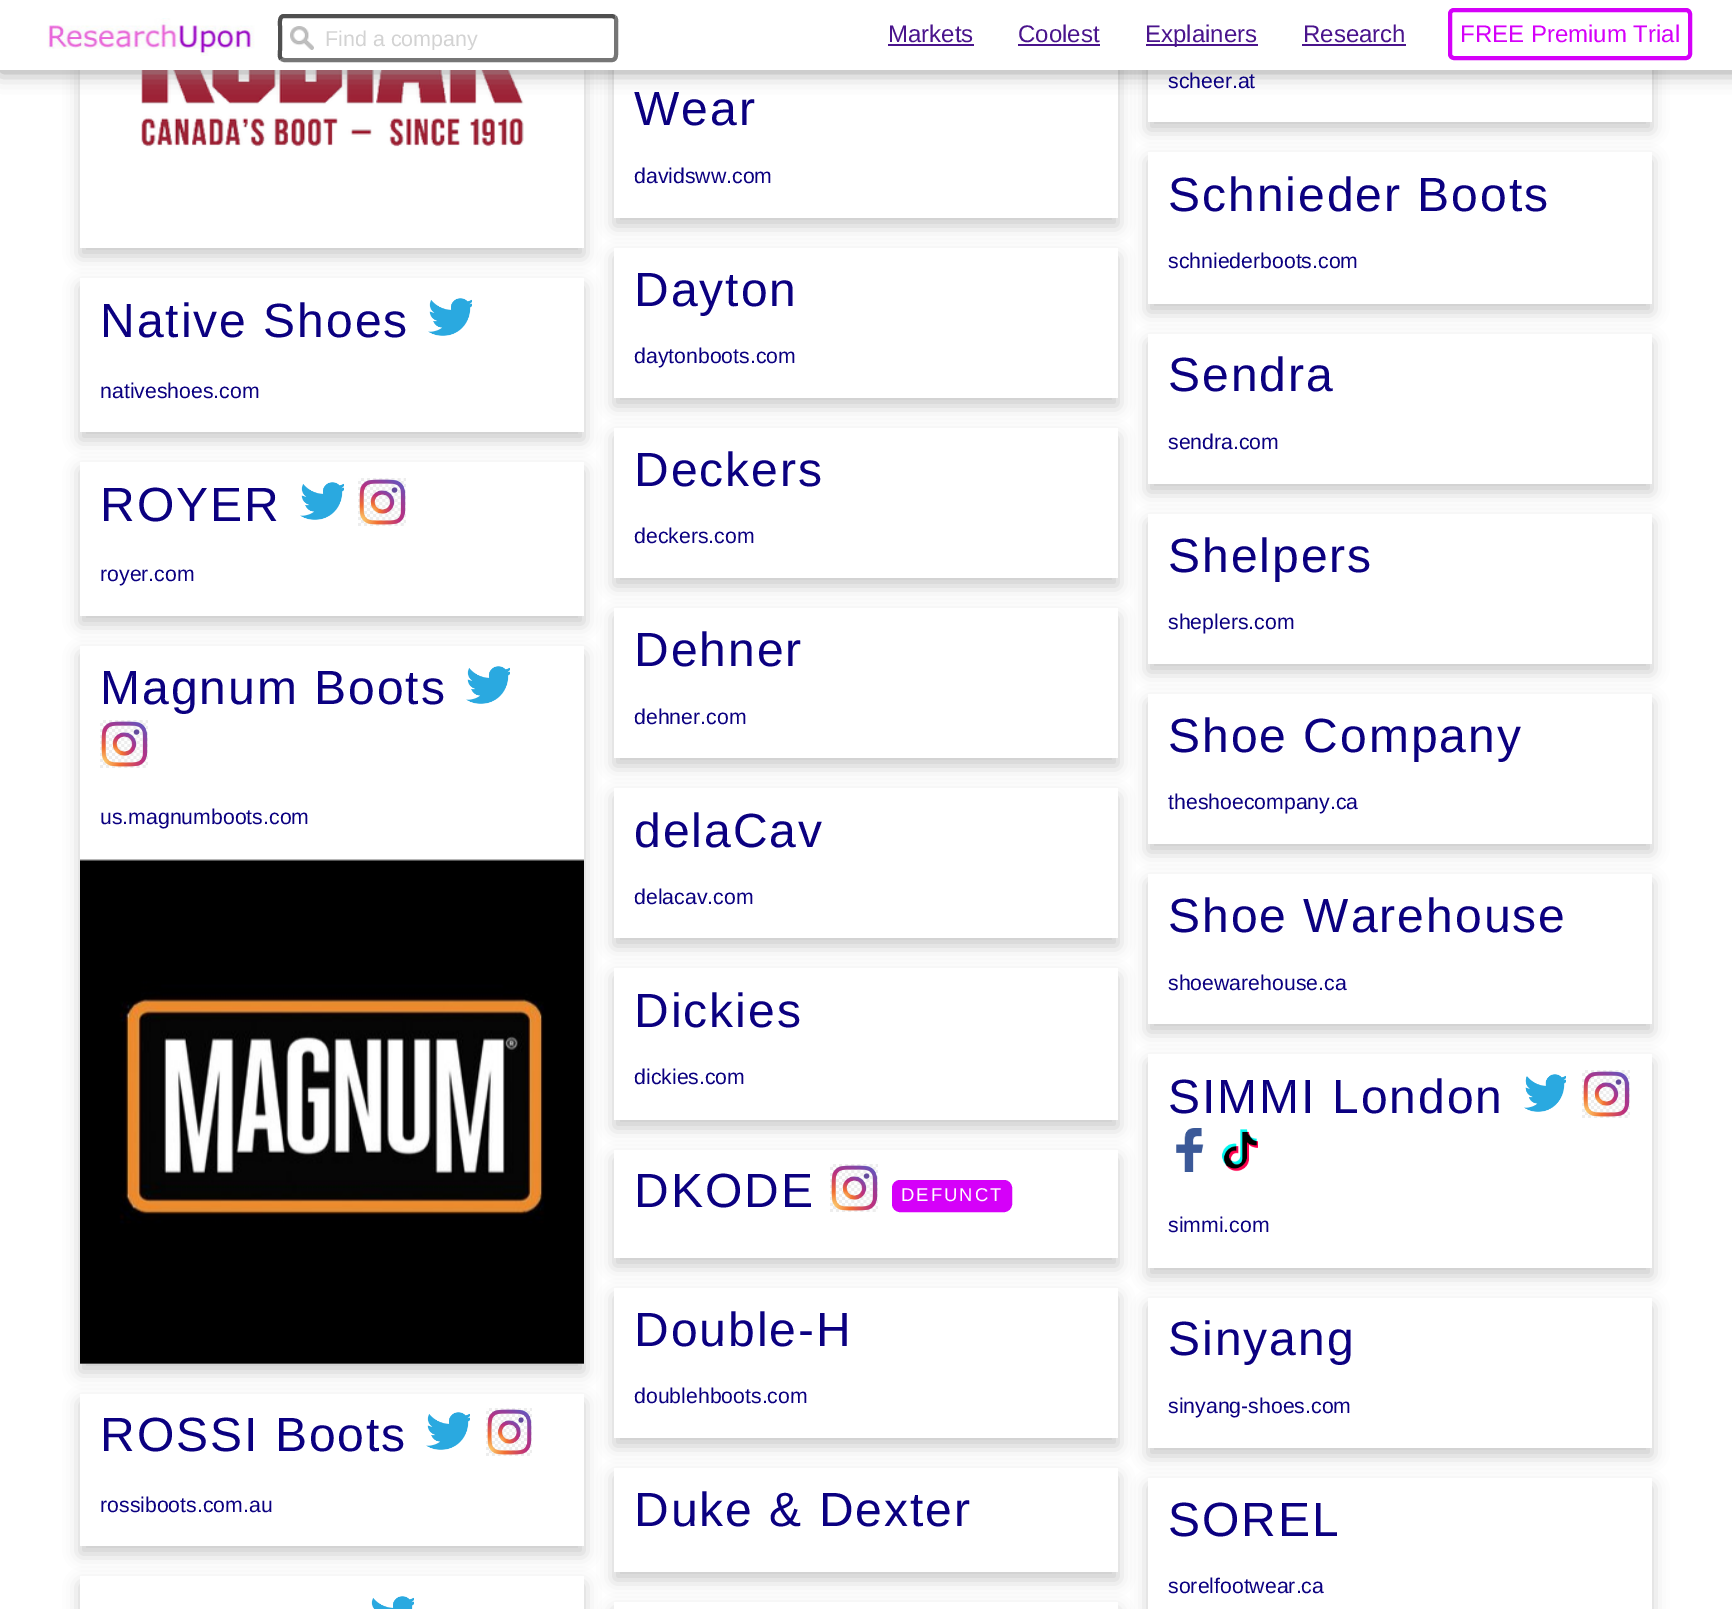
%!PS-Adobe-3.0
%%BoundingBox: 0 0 1732 1609
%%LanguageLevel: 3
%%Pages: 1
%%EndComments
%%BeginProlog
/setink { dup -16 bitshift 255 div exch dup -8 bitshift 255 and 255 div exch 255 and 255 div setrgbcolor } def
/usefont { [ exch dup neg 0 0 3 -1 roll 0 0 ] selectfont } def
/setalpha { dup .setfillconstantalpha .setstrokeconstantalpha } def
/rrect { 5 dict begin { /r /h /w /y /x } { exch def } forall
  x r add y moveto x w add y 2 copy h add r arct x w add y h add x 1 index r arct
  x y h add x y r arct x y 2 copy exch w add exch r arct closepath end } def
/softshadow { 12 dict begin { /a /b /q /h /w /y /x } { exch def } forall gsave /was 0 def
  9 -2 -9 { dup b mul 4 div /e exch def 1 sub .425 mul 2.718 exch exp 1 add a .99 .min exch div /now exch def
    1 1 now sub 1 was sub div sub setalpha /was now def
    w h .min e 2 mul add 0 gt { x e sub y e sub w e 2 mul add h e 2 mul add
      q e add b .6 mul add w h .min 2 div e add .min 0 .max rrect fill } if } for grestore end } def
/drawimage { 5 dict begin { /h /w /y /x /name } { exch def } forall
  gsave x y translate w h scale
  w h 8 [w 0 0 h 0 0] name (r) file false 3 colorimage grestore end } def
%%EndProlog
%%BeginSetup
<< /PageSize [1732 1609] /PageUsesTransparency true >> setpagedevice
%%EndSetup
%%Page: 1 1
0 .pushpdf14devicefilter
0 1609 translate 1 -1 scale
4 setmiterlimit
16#FFFFFF setink
0 0 1732 1609 rectfill
gsave
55 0 moveto 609 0 lineto 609 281 lineto 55 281 lineto closepath 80 -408 moveto 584 -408 lineto 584 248 lineto 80 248 lineto closepath eoclip newpath
16#000000 setink
80 -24 504 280 0 8 0.2 softshadow
grestore
(img3.raw) 141 70 383 77 drawimage
16#999999 setink
0 2 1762 70 0 10 1 softshadow
gsave
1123 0 moveto 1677 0 lineto 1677 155 lineto 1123 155 lineto closepath 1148 -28 moveto 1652 -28 lineto 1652 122 lineto 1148 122 lineto closepath eoclip newpath
16#000000 setink
1148 -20 504 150 0 8 0.2 softshadow
grestore
gsave
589 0 moveto 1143 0 lineto 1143 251 lineto 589 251 lineto closepath 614 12 moveto 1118 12 lineto 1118 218 lineto 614 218 lineto closepath eoclip newpath
16#000000 setink
614 20 504 206 0 8 0.2 softshadow
grestore
16#FFFFFF setink
0 0 1732 70 rectfill
(img1.raw) 47 18 208 38 drawimage
(img2.raw) 290 26 24 24 drawimage
16#767676 setink
4 setlinewidth
615 17 moveto 617 19.5 616 24 616 26 curveto 616 50 lineto 616 53 617 60 612 60 curveto 284 60 lineto 281 59 lineto stroke
16#4F4F4F setink
281 59 moveto 279 56.5 280 52 280 50 curveto 280 26 lineto 280 23 279 16 284 16 curveto 612 16 lineto 615 17 lineto stroke
gsave
326 26 278 24 rectclip
/LiberationSans-Regular 21.5 usefont
16#D3D3D3 setink
325 46 moveto (Find a company) show
grestore
/LiberationSans-Regular 24 usefont
16#4A148C setink
888 42 moveto (Markets) show
888 44 86 2 rectfill
1018 42 moveto (Coolest) show
1018 44 82 2 rectfill
1146 44 112 2 rectfill
1145 42 moveto (Explainers) show
1303 42 moveto (Research) show
1302 44 104 2 rectfill
16#D500F9 setink
1450 10 240 48 4 rrect stroke
1460 42 moveto (FREE Premium Trial) show
/LiberationSans-Regular 21.25 usefont
16#0B0080 setink
1168 88 moveto (scheer.at) show
/LiberationSans-Regular 48 usefont
634 125 moveto 2 0 (Wear) ashow
/LiberationSans-Regular 21.25 usefont
634 183 moveto (davidsww.com) show
gsave
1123 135 moveto 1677 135 lineto 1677 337 lineto 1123 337 lineto closepath 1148 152 moveto 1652 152 lineto 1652 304 lineto 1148 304 lineto closepath eoclip newpath
16#000000 setink
1148 160 504 152 0 8 0.2 softshadow
grestore
/LiberationSans-Regular 48 usefont
1168 211 moveto 2 0 (Schnieder Boots) ashow
/LiberationSans-Regular 21.25 usefont
1168 268 moveto (schniederboots.com) show
gsave
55 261 moveto 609 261 lineto 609 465 lineto 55 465 lineto closepath 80 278 moveto 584 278 lineto 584 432 lineto 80 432 lineto closepath eoclip newpath
16#000000 setink
80 286 504 154 0 8 0.2 softshadow
grestore
/LiberationSans-Regular 48 usefont
100 337 moveto 2 0 (Native Shoes) ashow
(img4.raw) 428 298 44 38 drawimage
/LiberationSans-Regular 21.25 usefont
100 398 moveto (nativeshoes.com) show
gsave
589 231 moveto 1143 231 lineto 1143 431 lineto 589 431 lineto closepath 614 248 moveto 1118 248 lineto 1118 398 lineto 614 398 lineto closepath eoclip newpath
16#000000 setink
614 256 504 150 0 8 0.2 softshadow
grestore
/LiberationSans-Regular 48 usefont
634 306 moveto 2 0 (Dayton) ashow
/LiberationSans-Regular 21.25 usefont
634 363 moveto (daytonboots.com) show
gsave
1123 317 moveto 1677 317 lineto 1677 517 lineto 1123 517 lineto closepath 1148 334 moveto 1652 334 lineto 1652 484 lineto 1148 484 lineto closepath eoclip newpath
16#000000 setink
1148 342 504 150 0 8 0.2 softshadow
grestore
/LiberationSans-Regular 48 usefont
1168 391 moveto 2 0 (Sendra) ashow
/LiberationSans-Regular 21.25 usefont
1168 449 moveto (sendra.com) show
gsave
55 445 moveto 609 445 lineto 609 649 lineto 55 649 lineto closepath 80 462 moveto 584 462 lineto 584 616 lineto 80 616 lineto closepath eoclip newpath
16#000000 setink
80 470 504 154 0 8 0.2 softshadow
grestore
/LiberationSans-Regular 48 usefont
100 521 moveto 2 0 (ROYER) ashow
(img4.raw) 300 482 44 38 drawimage
(img5.raw) 358 478 48 48 drawimage
/LiberationSans-Regular 21.25 usefont
100 581 moveto (royer.com) show
gsave
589 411 moveto 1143 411 lineto 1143 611 lineto 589 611 lineto closepath 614 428 moveto 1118 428 lineto 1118 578 lineto 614 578 lineto closepath eoclip newpath
16#000000 setink
614 436 504 150 0 8 0.2 softshadow
grestore
/LiberationSans-Regular 48 usefont
634 486 moveto 2 0 (Deckers) ashow
/LiberationSans-Regular 21.25 usefont
634 543 moveto (deckers.com) show
gsave
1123 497 moveto 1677 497 lineto 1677 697 lineto 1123 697 lineto closepath 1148 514 moveto 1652 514 lineto 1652 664 lineto 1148 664 lineto closepath eoclip newpath
16#000000 setink
1148 522 504 150 0 8 0.2 softshadow
grestore
/LiberationSans-Regular 48 usefont
1168 572 moveto 2 0 (Shelpers) ashow
/LiberationSans-Regular 21.25 usefont
1168 629 moveto (sheplers.com) show
gsave
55 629 moveto 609 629 lineto 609 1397 lineto 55 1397 lineto closepath 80 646 moveto 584 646 lineto 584 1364 lineto 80 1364 lineto closepath eoclip newpath
16#000000 setink
80 654 504 718 0 8 0.2 softshadow
grestore
/LiberationSans-Regular 48 usefont
100 704 moveto 2 0 (Magnum Boots) ashow
(img4.raw) 466 666 44 38 drawimage
(img5.raw) 100 720 48 48 drawimage
/LiberationSans-Regular 21.25 usefont
100 824 moveto (us.magnumboots.com) show
(img6.raw) 80 859 504 505 drawimage
gsave
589 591 moveto 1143 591 lineto 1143 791 lineto 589 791 lineto closepath 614 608 moveto 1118 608 lineto 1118 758 lineto 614 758 lineto closepath eoclip newpath
16#000000 setink
614 616 504 150 0 8 0.2 softshadow
grestore
/LiberationSans-Regular 48 usefont
634 666 moveto 2 0 (Dehner) ashow
/LiberationSans-Regular 21.25 usefont
634 724 moveto (dehner.com) show
gsave
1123 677 moveto 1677 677 lineto 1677 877 lineto 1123 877 lineto closepath 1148 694 moveto 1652 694 lineto 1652 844 lineto 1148 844 lineto closepath eoclip newpath
16#000000 setink
1148 702 504 150 0 8 0.2 softshadow
grestore
/LiberationSans-Regular 48 usefont
1168 752 moveto 2 0 (Shoe Company) ashow
/LiberationSans-Regular 21.25 usefont
1168 809 moveto (theshoecompany.ca) show
gsave
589 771 moveto 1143 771 lineto 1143 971 lineto 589 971 lineto closepath 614 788 moveto 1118 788 lineto 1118 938 lineto 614 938 lineto closepath eoclip newpath
16#000000 setink
614 796 504 150 0 8 0.2 softshadow
grestore
/LiberationSans-Regular 48 usefont
634 847 moveto 2 0 (delaCav) ashow
/LiberationSans-Regular 21.25 usefont
634 904 moveto (delacav.com) show
gsave
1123 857 moveto 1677 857 lineto 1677 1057 lineto 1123 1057 lineto closepath 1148 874 moveto 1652 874 lineto 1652 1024 lineto 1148 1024 lineto closepath eoclip newpath
16#000000 setink
1148 882 504 150 0 8 0.2 softshadow
grestore
/LiberationSans-Regular 48 usefont
1168 932 moveto 2 0 (Shoe Warehouse) ashow
/LiberationSans-Regular 21.25 usefont
1168 990 moveto (shoewarehouse.ca) show
gsave
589 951 moveto 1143 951 lineto 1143 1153 lineto 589 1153 lineto closepath 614 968 moveto 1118 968 lineto 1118 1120 lineto 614 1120 lineto closepath eoclip newpath
16#000000 setink
614 976 504 152 0 8 0.2 softshadow
grestore
/LiberationSans-Regular 48 usefont
634 1027 moveto 2 0 (Dickies) ashow
/LiberationSans-Regular 21.25 usefont
634 1084 moveto (dickies.com) show
gsave
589 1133 moveto 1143 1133 lineto 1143 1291 lineto 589 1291 lineto closepath 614 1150 moveto 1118 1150 lineto 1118 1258 lineto 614 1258 lineto closepath eoclip newpath
16#000000 setink
614 1158 504 108 0 8 0.2 softshadow
grestore
/LiberationSans-Regular 48 usefont
634 1207 moveto 2 0 (DKODE) ashow
(img5.raw) 830 1164 48 48 drawimage
16#D500F9 setink
894 1182 116 28 6 rrect gsave fill grestore
stroke
/LiberationSans-Regular 18.5 usefont
16#FFFFFF setink
901 1201 moveto 2 0 (DEFUNCT) ashow
gsave
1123 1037 moveto 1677 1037 lineto 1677 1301 lineto 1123 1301 lineto closepath 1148 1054 moveto 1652 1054 lineto 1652 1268 lineto 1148 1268 lineto closepath eoclip newpath
16#000000 setink
1148 1062 504 214 0 8 0.2 softshadow
grestore
/LiberationSans-Regular 48 usefont
16#0B0080 setink
1168 1113 moveto 2 0 (SIMMI London) ashow
(img7.raw) 1524 1074 42 38 drawimage
(img5.raw) 1582 1070 48 48 drawimage
(img8.raw) 1176 1128 28 44 drawimage
(img9.raw) 1221 1129 37 43 drawimage
/LiberationSans-Regular 21.25 usefont
1168 1232 moveto (simmi.com) show
gsave
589 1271 moveto 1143 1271 lineto 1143 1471 lineto 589 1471 lineto closepath 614 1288 moveto 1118 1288 lineto 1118 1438 lineto 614 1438 lineto closepath eoclip newpath
16#000000 setink
614 1296 504 150 0 8 0.2 softshadow
grestore
/LiberationSans-Regular 48 usefont
634 1346 moveto 2 0 (Double-H) ashow
/LiberationSans-Regular 21.25 usefont
634 1403 moveto (doublehboots.com) show
gsave
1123 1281 moveto 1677 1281 lineto 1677 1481 lineto 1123 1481 lineto closepath 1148 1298 moveto 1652 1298 lineto 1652 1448 lineto 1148 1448 lineto closepath eoclip newpath
16#000000 setink
1148 1306 504 150 0 8 0.2 softshadow
grestore
/LiberationSans-Regular 48 usefont
1168 1355 moveto 2 0 (Sinyang) ashow
/LiberationSans-Regular 21.25 usefont
1168 1413 moveto (sinyang-shoes.com) show
gsave
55 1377 moveto 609 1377 lineto 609 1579 lineto 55 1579 lineto closepath 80 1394 moveto 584 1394 lineto 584 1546 lineto 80 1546 lineto closepath eoclip newpath
16#000000 setink
80 1402 504 152 0 8 0.2 softshadow
grestore
/LiberationSans-Regular 48 usefont
100 1451 moveto 2 0 (ROSSI Boots) ashow
(img4.raw) 426 1412 44 38 drawimage
(img10.raw) 486 1408 46 48 drawimage
/LiberationSans-Regular 21.25 usefont
100 1512 moveto (rossiboots.com.au) show
gsave
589 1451 moveto 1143 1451 lineto 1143 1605 lineto 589 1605 lineto closepath 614 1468 moveto 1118 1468 lineto 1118 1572 lineto 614 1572 lineto closepath eoclip newpath
16#000000 setink
614 1476 504 104 0 8 0.2 softshadow
grestore
/LiberationSans-Regular 48 usefont
634 1526 moveto 2 0 (Duke & Dexter) ashow
gsave
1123 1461 moveto 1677 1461 lineto 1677 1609 lineto 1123 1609 lineto closepath 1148 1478 moveto 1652 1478 lineto 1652 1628 lineto 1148 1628 lineto closepath eoclip newpath
16#000000 setink
1148 1486 504 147 0 8 0.2 softshadow
grestore
1168 1536 moveto 2 0 (SOREL) ashow
/LiberationSans-Regular 21.25 usefont
1168 1593 moveto (sorelfootwear.ca) show
gsave
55 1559 moveto 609 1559 lineto 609 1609 lineto 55 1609 lineto closepath 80 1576 moveto 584 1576 lineto 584 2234 lineto 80 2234 lineto closepath eoclip newpath
16#000000 setink
80 1584 504 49 0 8 0.2 softshadow
grestore
(img11.raw) 371 1596 43 13 drawimage
gsave
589 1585 moveto 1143 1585 lineto 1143 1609 lineto 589 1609 lineto closepath 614 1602 moveto 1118 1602 lineto 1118 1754 lineto 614 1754 lineto closepath eoclip newpath
16#000000 setink
614 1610 504 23 0 8 0.2 softshadow
grestore
.poppdf14devicefilter showpage
%%EOF
